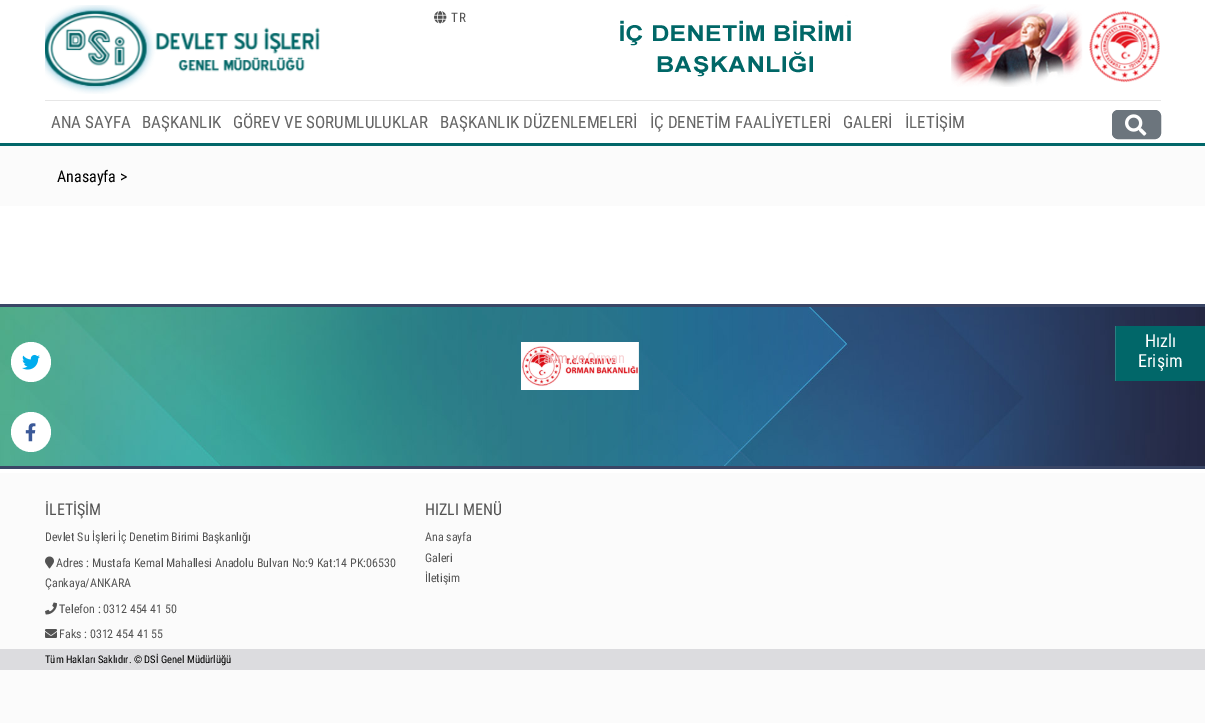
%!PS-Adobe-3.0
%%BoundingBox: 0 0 1205 723
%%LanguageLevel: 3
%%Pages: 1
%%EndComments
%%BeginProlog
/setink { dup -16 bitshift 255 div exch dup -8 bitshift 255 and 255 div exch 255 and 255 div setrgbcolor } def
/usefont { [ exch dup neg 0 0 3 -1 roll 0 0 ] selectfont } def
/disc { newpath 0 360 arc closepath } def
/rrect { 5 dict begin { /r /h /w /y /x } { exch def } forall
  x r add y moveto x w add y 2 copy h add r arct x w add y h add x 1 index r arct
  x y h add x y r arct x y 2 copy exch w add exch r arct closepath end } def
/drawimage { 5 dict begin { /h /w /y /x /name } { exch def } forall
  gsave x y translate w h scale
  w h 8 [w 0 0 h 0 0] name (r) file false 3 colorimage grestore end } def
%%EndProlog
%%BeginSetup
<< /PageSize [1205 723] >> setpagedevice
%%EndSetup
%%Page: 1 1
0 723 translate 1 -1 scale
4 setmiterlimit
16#FBFBFB setink
0 0 1205 723 rectfill
(img7.raw) 0 307 1205 159 drawimage
16#FFFFFF setink
31 362 20 disc fill
(img1.raw) 22 354 18 16 drawimage
31 432 20 disc fill
(img2.raw) 25 423 11 19 drawimage
0 0 1205 143 rectfill
16#016769 setink
0 143 1205 3 rectfill
(img3.raw) 45 5 275 89 drawimage
(img4.raw) 434 11 13 13 drawimage
/RobotoCondensed-Regular 13 usefont
16#535353 setink
451 22 moveto 1 0 (TR) ashow
(img5.raw) 620 4 540 83 drawimage
16#E6E6E6 setink
45 100 1116 1 rectfill
/RobotoCondensed-Regular 17 usefont
16#656565 setink
[
    [(ANA SAYFA) 51 128]
    [(BAŞKANLIK) 142 128]
    [(GÖREV VE SORUMLULUKLAR) 233 128]
    [(BAŞKANLIK DÜZENLEMELERİ) 440 128]
    [(İÇ DENETİM FAALİYETLERİ) 650 128]
    [(GALERİ) 843 128]
    [(İLETİŞİM) 905 128]
] { aload pop moveto show } forall
16#6C757D setink
1112.5 110.5 48 28 5.5 rrect gsave fill grestore
stroke
(img6.raw) 1125 114 22 22 drawimage
/RobotoCondensed-Regular 16 usefont
16#000000 setink
57 182 moveto (Anasayfa >) show
[
    [0 206 1205 98 16#FFFFFF]
    [0 304 1205 3 16#3A4666]
    [0 466 1205 3 16#3A4666]
] { aload pop setink rectfill } forall
(img8.raw) 521 342 118 48 drawimage
/RobotoCondensed-Regular 14.5 usefont
16#F2AFB1 setink
535 363 moveto (Tarım ve) show
16#F8D3D5 setink
587 363 moveto (Orman) show
16#FFFFFF setink
0 469 1205 4 rectfill
/RobotoCondensed-Regular 16 usefont
16#535353 setink
45 515 moveto (İLETİŞİM) show
/RobotoCondensed-Regular 12 usefont
45 541 moveto (Devlet Su İşleri İç Denetim Birimi Başkanlığı) show
(img9.raw) 45 556 9 13 drawimage
56 567 moveto (Adres : Mustafa Kemal Mahallesi Anadolu Bulvarı No:9 Kat:14 PK:06530) show
45 587 moveto (Çankaya/ANKARA) show
(img10.raw) 45 602 12 13 drawimage
59 613 moveto (Telefon : 0312 454 41 50) show
(img11.raw) 45 629 12 9 drawimage
59 638 moveto (Faks : 0312 454 41 55) show
/RobotoCondensed-Regular 16 usefont
425 515 moveto (HIZLI MENÜ) show
/RobotoCondensed-Regular 12 usefont
[
    [(Ana sayfa) 425 541]
    [(Galeri) 425 562]
    [(İletişim) 425 582]
] { aload pop moveto show } forall
16#DCDCDF setink
0 649 1205 21 rectfill
/RobotoCondensed-Regular 10.5 usefont
16#000000 setink
45 663 moveto (Tüm Hakları Saklıdır. © DSİ Genel Müdürlüğü) show
16#016769 setink
1116 326 89 55 rectfill
16#2A7F81 setink
1115 326 1 55 rectfill
/RobotoCondensed-Regular 18 usefont
16#FFFFFF setink
1145 347 moveto (Hızlı) show
1138 367 moveto (Erişim) show
showpage
%%EOF
